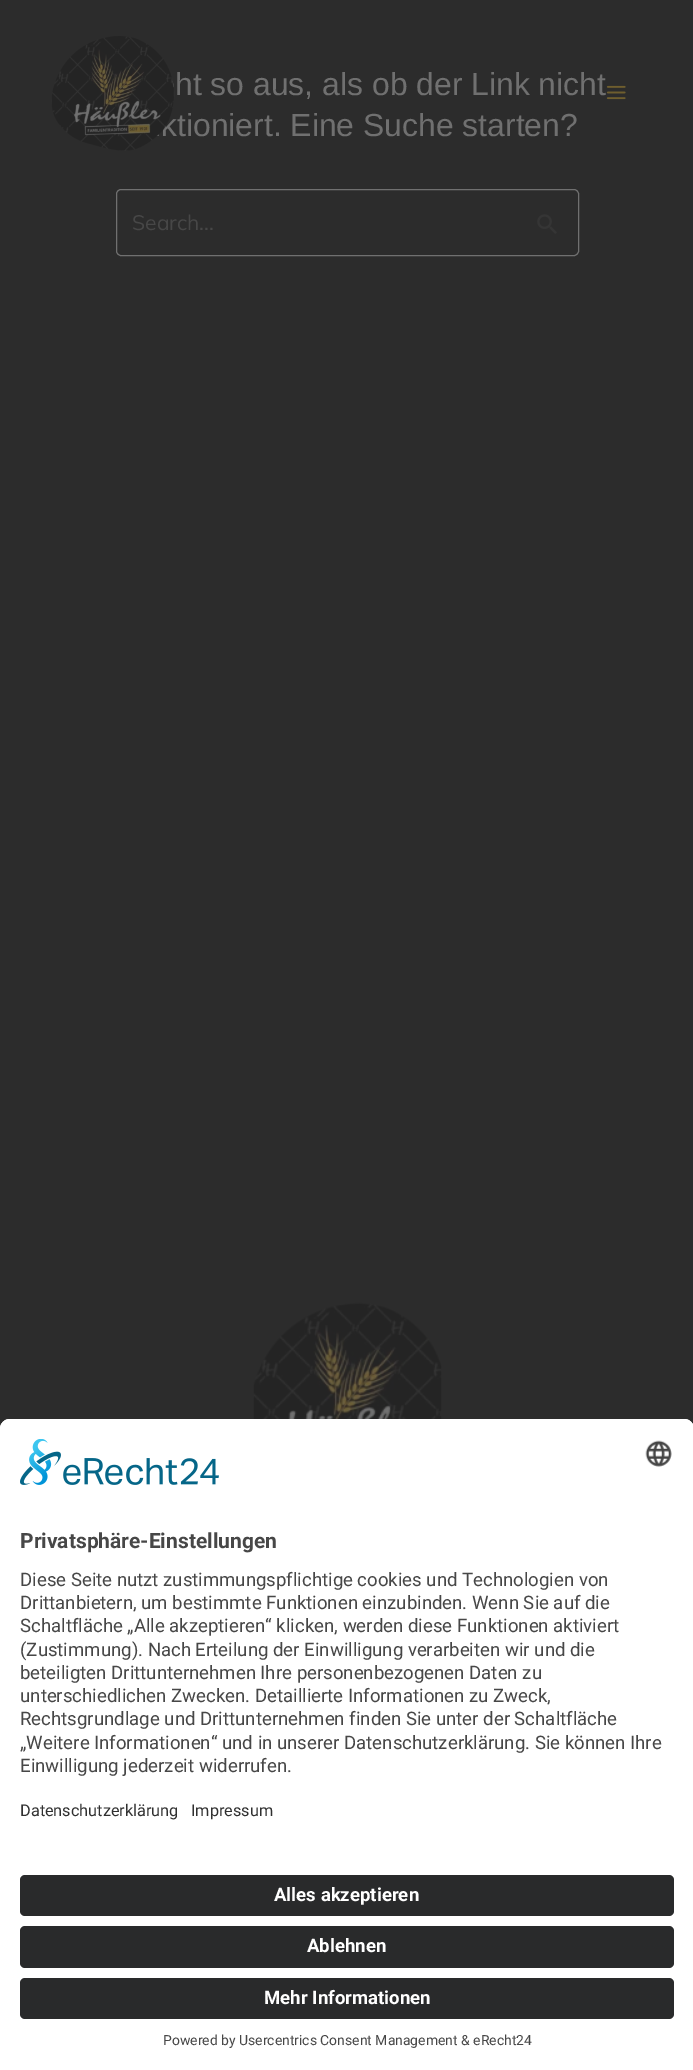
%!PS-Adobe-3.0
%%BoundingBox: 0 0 693 2070
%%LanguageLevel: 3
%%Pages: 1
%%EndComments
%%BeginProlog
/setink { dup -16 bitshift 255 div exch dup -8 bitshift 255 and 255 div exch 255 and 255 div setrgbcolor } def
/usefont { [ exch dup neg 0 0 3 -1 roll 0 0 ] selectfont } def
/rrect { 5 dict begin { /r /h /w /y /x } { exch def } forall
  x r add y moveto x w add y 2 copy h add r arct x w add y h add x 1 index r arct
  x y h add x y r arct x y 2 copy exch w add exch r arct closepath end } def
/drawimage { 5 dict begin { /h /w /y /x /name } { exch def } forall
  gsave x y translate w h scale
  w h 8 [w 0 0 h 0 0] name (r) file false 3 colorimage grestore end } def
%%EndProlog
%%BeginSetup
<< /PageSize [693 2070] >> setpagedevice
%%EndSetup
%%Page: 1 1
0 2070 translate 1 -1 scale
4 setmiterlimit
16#2C2C2C setink
0 0 693 2070 rectfill
/LiberationSans-Regular 31.9 usefont
16#707070 setink
161 136 moveto (ktioniert. Eine Suche starten?) show
(img1.raw) 51 36 124 115 drawimage
(img2.raw) 606 85 20 15 drawimage
175 95 moveto (ht so aus, als ob der Link nicht) show
116.5 189.5 462 66 4.5 rrect stroke
/Mulish-Regular 21 usefont
16#474747 setink
132 230 moveto (Search...) show
(img3.raw) 537 214 20 20 drawimage
(img4.raw) 253 1302 189 117 drawimage
16#FFFFFF setink
10 1419 moveto 684 1419 lineto 689.5 1419 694 1423.5 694 1429 curveto 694 2070 lineto 0 2070 lineto 0 1429 lineto 0 1423.5 4.5 1419 10 1419 curveto closepath fill
10 1419 moveto 684 1419 lineto 689.5 1419 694 1423.5 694 1429 curveto 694 1860 lineto 0 1860 lineto 0 1429 lineto 0 1423.5 4.5 1419 10 1419 curveto closepath fill
(img5.raw) 20 1439 199 46 drawimage
(img6.raw) 645 1440 27 27 drawimage
/Roboto-Bold 21 usefont
16#474747 setink
20 1548 moveto (Privatsphäre-Einstellungen) show
/Roboto-Regular 18.6 usefont
[
    [(Diese Seite nutzt zustimmungspflichtige cookies und Technologien von) 20 1586]
    [(Drittanbietern, um bestimmte Funktionen einzubinden. Wenn Sie auf die) 20 1609]
    [(Schaltfläche „Alle akzeptieren“ klicken, werden diese Funktionen aktiviert) 20 1632]
    [(\(Zustimmung\). Nach Erteilung der Einwilligung verarbeiten wir und die) 20 1656]
    [(beteiligten Drittunternehmen Ihre personenbezogenen Daten zu) 20 1679]
    [(unterschiedlichen Zwecken. Detaillierte Informationen zu Zweck,) 20 1702]
    [(Rechtsgrundlage und Drittunternehmen finden Sie unter der Schaltfläche) 20 1725]
    [(„Weitere Informationen“ und in unserer Datenschutzerklärung. Sie können Ihre) 20 1749]
    [(Einwilligung jederzeit widerrufen.) 20 1772]
] { aload pop moveto show } forall
/Roboto-Regular 16.25 usefont
16#303030 setink
20 1816 moveto (Datenschutzerklärung) show
191 1816 moveto (Impressum) show
16#292A2B setink
20 1875 654 41 5 rrect fill
/Roboto-Bold 18.6 usefont
16#FFFFFF setink
274 1901 moveto (Alles akzeptieren) show
16#292A2B setink
20 1926 654 42 5 rrect fill
16#FFFFFF setink
307 1952 moveto (Ablehnen) show
16#292A2B setink
20 1978 654 41 5 rrect fill
16#FFFFFF setink
264 2004 moveto (Mehr Informationen) show
/Roboto-Regular 13.95 usefont
16#474747 setink
163 2045 moveto (Powered by Usercentrics Consent Management & eRecht24) show
showpage
%%EOF
